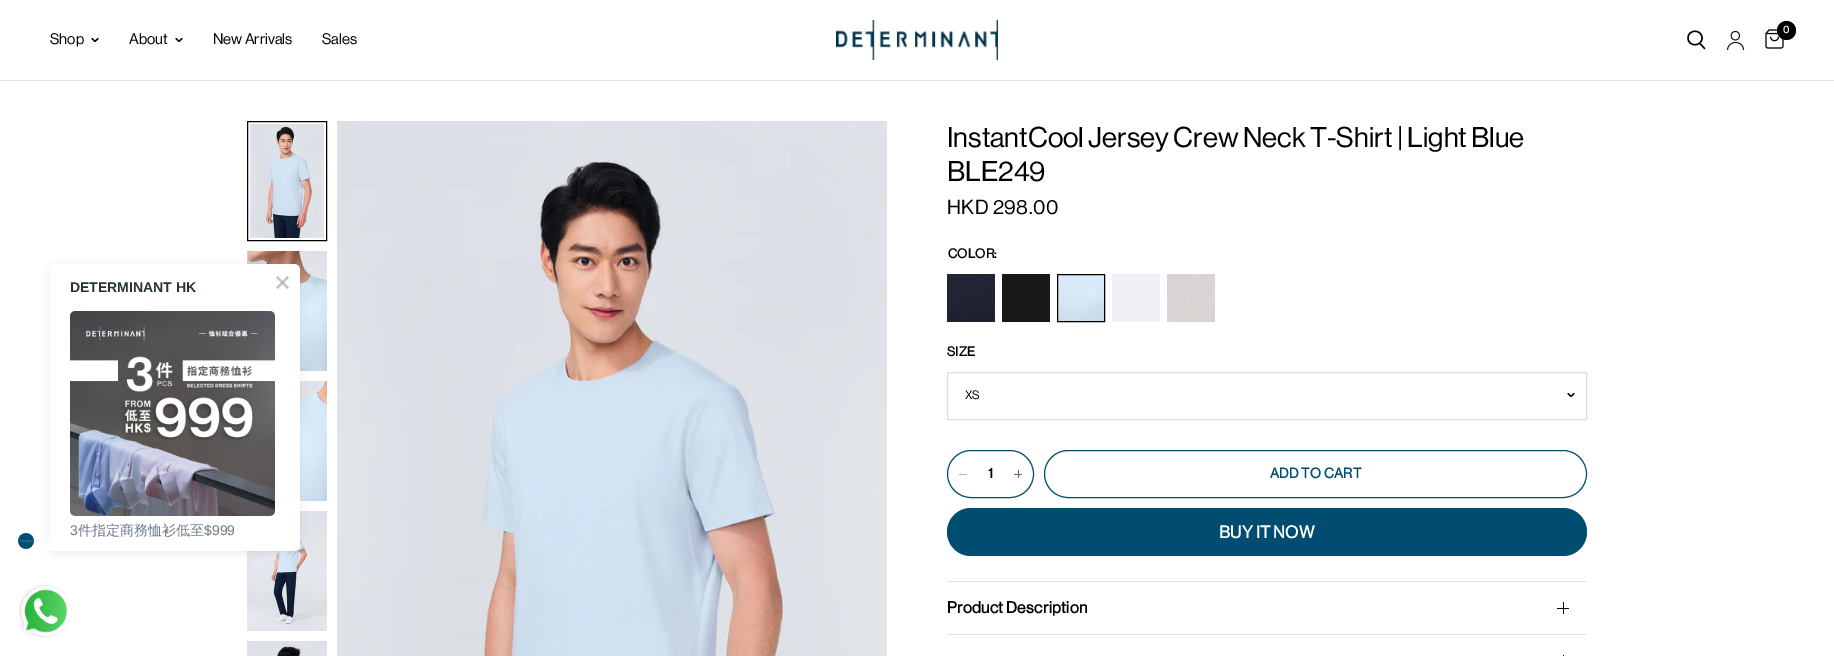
%!PS-Adobe-3.0
%%BoundingBox: 0 0 1834 656
%%LanguageLevel: 3
%%Pages: 1
%%EndComments
%%BeginProlog
/setink { dup -16 bitshift 255 div exch dup -8 bitshift 255 and 255 div exch 255 and 255 div setrgbcolor } def
/usefont { [ exch dup neg 0 0 3 -1 roll 0 0 ] selectfont } def
/setalpha { dup .setfillconstantalpha .setstrokeconstantalpha } def
/disc { newpath 0 360 arc closepath } def
/rrect { 5 dict begin { /r /h /w /y /x } { exch def } forall
  x r add y moveto x w add y 2 copy h add r arct x w add y h add x 1 index r arct
  x y h add x y r arct x y 2 copy exch w add exch r arct closepath end } def
/softshadow { 12 dict begin { /a /b /q /h /w /y /x } { exch def } forall gsave /was 0 def
  9 -2 -9 { dup b mul 4 div /e exch def 1 sub .425 mul 2.718 exch exp 1 add a .99 .min exch div /now exch def
    1 1 now sub 1 was sub div sub setalpha /was now def
    w h .min e 2 mul add 0 gt { x e sub y e sub w e 2 mul add h e 2 mul add
      q e add b .6 mul add w h .min 2 div e add .min 0 .max rrect fill } if } for grestore end } def
/drawimage { 5 dict begin { /h /w /y /x /name } { exch def } forall
  gsave x y translate w h scale
  w h 8 [w 0 0 h 0 0] name (r) file false 3 colorimage grestore end } def
%%EndProlog
%%BeginSetup
<< /PageSize [1834 656] /PageUsesTransparency true >> setpagedevice
%%EndSetup
%%Page: 1 1
0 .pushpdf14devicefilter
0 656 translate 1 -1 scale
4 setmiterlimit
16#FFFFFF setink
0 0 1834 656 rectfill
16#E2E2E2 setink
0 80 1834 1 rectfill
(img1.raw) 836 20 162 40 drawimage
16#000000 setink
1.4 setlinewidth
1 setlinecap
1 setlinejoin
1700 43.5 moveto 1704.5 48.5 lineto 1702 38 moveto 1702 47 1688 47 1688 38 curveto 1688 29 1702 29 1702 38 curveto closepath stroke
(img2.raw) 1727 30 18 21 drawimage
(img3.raw) 1765 29 19 20 drawimage
1786.5 30.5 9.5 disc fill
/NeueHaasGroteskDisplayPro-Bold 10 usefont
16#FFFFFF setink
1783 33 moveto (0) show
/NeueHaasGroteskDisplayPro-Regular 15 usefont
16#000000 setink
50 44 moveto (Shop) show
1.1 setlinewidth
98 38.5 moveto 95 41.5 lineto 92 38.5 lineto stroke
129 44 moveto (About) show
182 38.5 moveto 179 41.5 lineto 176 38.5 lineto stroke
213 44 moveto (New Arrivals) show
322 44 moveto (Sales) show
(img4.raw) 250 124 74 114 drawimage
1 setlinewidth
0 setlinecap
0 setlinejoin
247.5 121.5 79 119 rectstroke
(img5.raw) 247 251 80 120 drawimage
(img6.raw) 300 381 27 120 drawimage
(img7.raw) 247 511 80 120 drawimage
(img8.raw) 247 641 80 15 drawimage
(img9.raw) 337 121 550 535 drawimage
/NeueHaasGroteskDisplayPro-Regular 28 usefont
947 147 moveto (InstantCool Jersey Crew Neck T-Shirt | Light Blue) show
947 181 moveto (BLE249) show
/NeueHaasGroteskDisplayPro-Regular 20 usefont
947 214 moveto 0.5 0 (HKD 298.00) ashow
/NeueHaasGroteskDisplayPro-Bold 13 usefont
948 258 moveto 0.25 0 (COLOR:) ashow
(img10.raw) 947 274 48 48 drawimage
16#161819 setink
1002 274 48 48 rectfill
(img11.raw) 1058 275 46 46 drawimage
16#000000 setink
1057.5 274.5 47 47 rectstroke
16#EEF0F5 setink
1112 274 48 48 rectfill
(img12.raw) 1167 274 48 48 drawimage
16#000000 setink
947 356 moveto 0.25 0 (SIZE) ashow
16#DEDEDE setink
947.5 372.5 639 47 rectstroke
/NeueHaasGroteskDisplayPro-Regular 12 usefont
16#000000 setink
965 399 moveto (XS) show
1.1 setlinewidth
1 setlinecap
1 setlinejoin
1574 393.5 moveto 1571 396.5 lineto 1568 393.5 lineto stroke
16#004D71 setink
1 setlinewidth
0 setlinecap
0 setlinejoin
947.5 450.5 86 47 23.5 rrect stroke
16#B3B3B3 setink
959 474 8 1 rectfill
/NeueHaasGroteskDisplayPro-Bold 14 usefont
16#000000 setink
988 478 moveto (1) show
16#666666 setink
1018 470 1 8 rectfill
1014 474 8 1 rectfill
16#004D71 setink
1044.5 450.5 542 47 23.5 rrect stroke
1270 478 moveto 0.25 0 (ADD TO CART) ashow
947 508 640 48 24 rrect fill
/NeueHaasGroteskDisplayPro-Bold 17 usefont
16#FFFFFF setink
1219 538 moveto 0.25 0 (BUY IT NOW) ashow
16#E2E2E2 setink
947 581 640 1 rectfill
947 634 640 1 rectfill
/NeueHaasGroteskDisplayPro-Bold 16 usefont
16#000000 setink
947 613 moveto 0.3 0 (Product Description) ashow
[
    [1563 602 1 12 16#000000]
    [1557 608 12 1 16#000000]
    [1563 655 1 1 16#000000]
] { aload pop setink rectfill } forall
16#232F35 setink
50 266 250 287 6 4 0.09 softshadow
16#FFFFFF setink
56 264 moveto 294 264 lineto 297.5 264 300 266.5 300 270 curveto 300 545 lineto 300 548.5 297.5 551 294 551 curveto 50 551 lineto 50 270 lineto 50 266.5 52.5 264 56 264 curveto closepath fill
/LiberationSans-Bold 14 usefont
16#263238 setink
70 292 moveto (DETERMINANT HK) show
(img13.raw) 276 276 13 13 drawimage
(img14.raw) 70 311 205 205 drawimage
/LiberationSans-Regular 14 usefont
16#6E7A89 setink
70 535 moveto (3) show
/WenQuanYiZenHei-Medium 14 usefont
78 535 moveto (件指定商務恤衫低至) show
/LiberationSans-Regular 14 usefont
204 535 moveto ($999) show
(img15.raw) 18 533 16 16 drawimage
16#FFFFFF setink
50 551 moveto 45 551 lineto 50 538 lineto closepath fill
(img16.raw) 19 584 53 54 drawimage
.poppdf14devicefilter showpage
%%EOF
